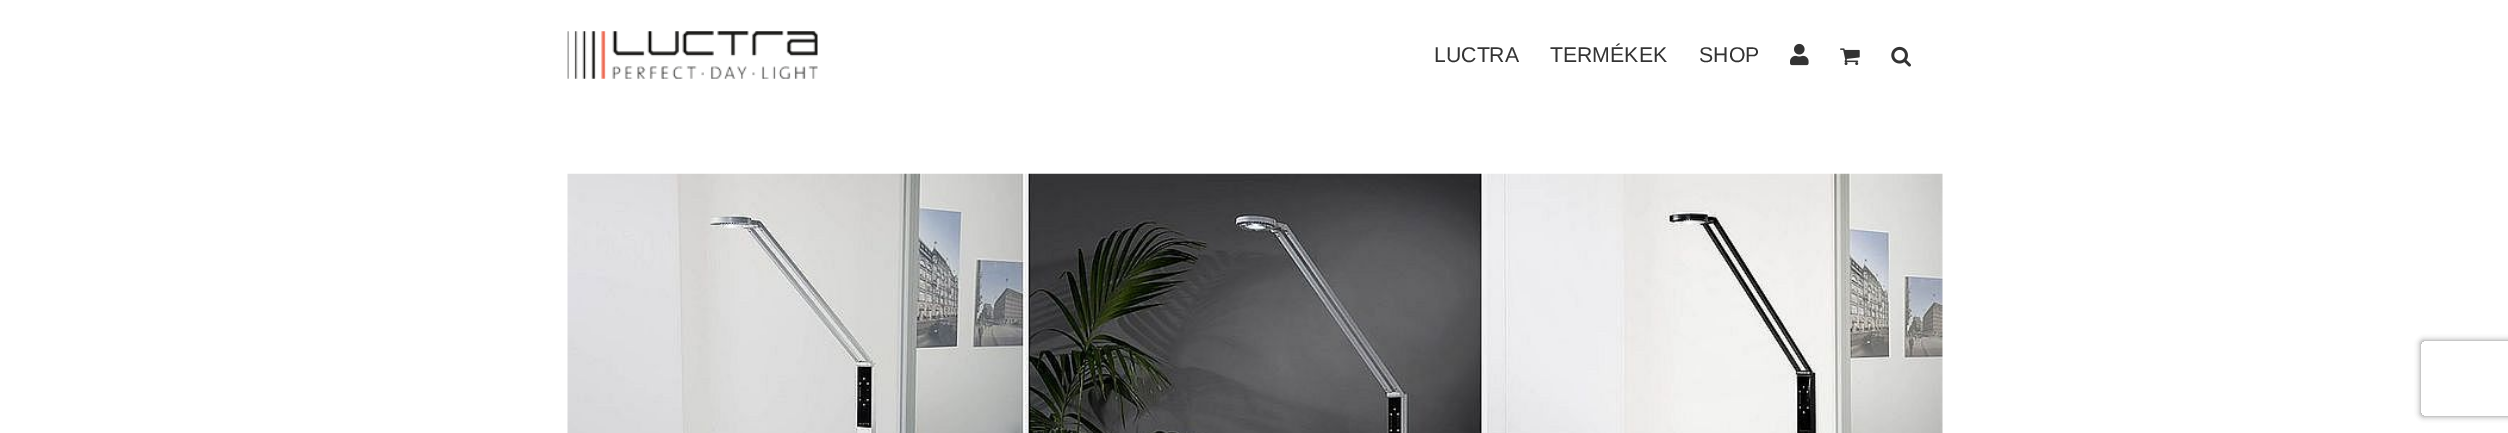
%!PS-Adobe-3.0
%%BoundingBox: 0 0 2508 433
%%LanguageLevel: 3
%%Pages: 1
%%EndComments
%%BeginProlog
/setink { dup -16 bitshift 255 div exch dup -8 bitshift 255 and 255 div exch 255 and 255 div setrgbcolor } def
/usefont { [ exch dup neg 0 0 3 -1 roll 0 0 ] selectfont } def
/setalpha { dup .setfillconstantalpha .setstrokeconstantalpha } def
/rrect { 5 dict begin { /r /h /w /y /x } { exch def } forall
  x r add y moveto x w add y 2 copy h add r arct x w add y h add x 1 index r arct
  x y h add x y r arct x y 2 copy exch w add exch r arct closepath end } def
/softshadow { 12 dict begin { /a /b /q /h /w /y /x } { exch def } forall gsave /was 0 def
  9 -2 -9 { dup b mul 4 div /e exch def 1 sub .425 mul 2.718 exch exp 1 add a .99 .min exch div /now exch def
    1 1 now sub 1 was sub div sub setalpha /was now def
    w h .min e 2 mul add 0 gt { x e sub y e sub w e 2 mul add h e 2 mul add
      q e add b .6 mul add w h .min 2 div e add .min 0 .max rrect fill } if } for grestore end } def
/drawimage { 5 dict begin { /h /w /y /x /name } { exch def } forall
  gsave x y translate w h scale
  w h 8 [w 0 0 h 0 0] name (r) file false 3 colorimage grestore end } def
%%EndProlog
%%BeginSetup
<< /PageSize [2508 433] /PageUsesTransparency true >> setpagedevice
%%EndSetup
%%Page: 1 1
0 .pushpdf14devicefilter
0 433 translate 1 -1 scale
4 setmiterlimit
16#FFFFFF setink
0 0 2508 433 rectfill
(img1.raw) 567 31 251 48 drawimage
/LiberationSans-Regular 21.25 usefont
16#333333 setink
[
    [(LUCTRA) 1434 62]
    [(TERMÉKEK) 1550 62]
    [(SHOP) 1699 62]
] { aload pop moveto show } forall
(img2.raw) 1790 43 19 23 drawimage
(img3.raw) 1840 48 20 18 drawimage
(img4.raw) 1891 46 20 21 drawimage
(img5.raw) 567 173 1376 260 drawimage
gsave
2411 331 moveto 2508 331 lineto 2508 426 lineto 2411 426 lineto closepath 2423.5 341 moveto 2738.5 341 lineto 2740 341 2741 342 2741 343.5 curveto 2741 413.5 lineto 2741 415 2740 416 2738.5 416 curveto 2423.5 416 lineto 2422 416 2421 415 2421 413.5 curveto 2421 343.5 lineto 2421 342 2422 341 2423.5 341 curveto closepath eoclip newpath
16#808080 setink
2421 341 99 75 2.5 3 1 softshadow
grestore
.poppdf14devicefilter showpage
%%EOF
